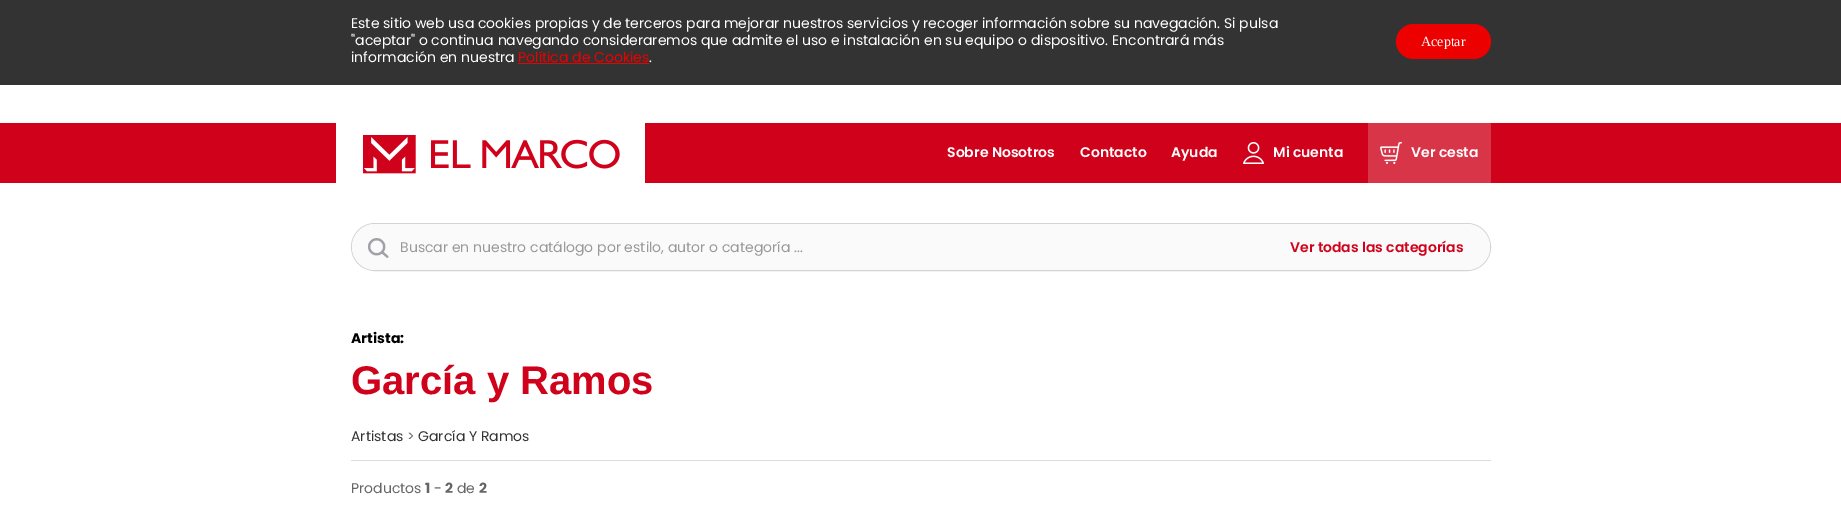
%!PS-Adobe-3.0
%%BoundingBox: 0 0 1841 508
%%LanguageLevel: 3
%%Pages: 1
%%EndComments
%%BeginProlog
/setink { dup -16 bitshift 255 div exch dup -8 bitshift 255 and 255 div exch 255 and 255 div setrgbcolor } def
/usefont { [ exch dup neg 0 0 3 -1 roll 0 0 ] selectfont } def
/rrect { 5 dict begin { /r /h /w /y /x } { exch def } forall
  x r add y moveto x w add y 2 copy h add r arct x w add y h add x 1 index r arct
  x y h add x y r arct x y 2 copy exch w add exch r arct closepath end } def
/drawimage { 5 dict begin { /h /w /y /x /name } { exch def } forall
  gsave x y translate w h scale
  w h 8 [w 0 0 h 0 0] name (r) file false 3 colorimage grestore end } def
%%EndProlog
%%BeginSetup
<< /PageSize [1841 508] >> setpagedevice
%%EndSetup
%%Page: 1 1
0 508 translate 1 -1 scale
4 setmiterlimit
16#FFFFFF setink
0 0 1841 508 rectfill
16#333333 setink
0 0 1841 85 rectfill
/Poppins-Regular 14 usefont
16#FFFFFF setink
[
    [(Este sitio web usa cookies propias y de terceros para mejorar nuestros servicios y recoger información sobre su navegación. Si pulsa) 351 28]
    [("aceptar" o continua navegando consideraremos que admite el uso e instalación en su equipo o dispositivo. Encontrará más) 351 45]
    [(información en nuestra) 351 62]
] { aload pop moveto show } forall
16#EC0000 setink
518 62 moveto (Política de Cookies) show
518 63 131 1 rectfill
16#FFFFFF setink
649 62 moveto (.) show
16#EC0000 setink
1396 24 95 35 17.5 rrect fill
/LiberationSerif-Regular 14 usefont
16#FFFFFF setink
1421 46 moveto (Aceptar) show
16#D0021B setink
0 123 1841 60 rectfill
(img1.raw) 336 123 309 60 drawimage
/Poppins-SemiBold 14 usefont
16#FFFFFF setink
[
    [(Sobre Nosotros) 947 157]
    [(Contacto) 1080 157]
    [(Ayuda) 1171 157]
] { aload pop moveto show } forall
(img2.raw) 1243 142 21 22 drawimage
1273 157 moveto (Mi cuenta) show
16#D93549 setink
1368 123 123 60 rectfill
(img3.raw) 1380 142 22 22 drawimage
16#FFFFFF setink
1411 157 moveto (Ver cesta) show
16#D4D4D8 setink
351.5 223.5 1139 47 23.5 rrect stroke
16#FAFAFA setink
352 224 1138 46 23 rrect fill
(img4.raw) 368 238 21 20 drawimage
/Poppins-Regular 14 usefont
16#999999 setink
400 252 moveto (Buscar en nuestro catálogo por estilo, autor o categoría ...) show
/Poppins-SemiBold 14 usefont
16#D0021B setink
1290 252 moveto (Ver todas las categorías) show
/Poppins-Bold 14 usefont
16#000000 setink
351 343 moveto (Artista:) show
/LiberationSans-Bold 40 usefont
16#D0021B setink
351 394 moveto (García y Ramos) show
/Poppins-Regular 14 usefont
16#333333 setink
351 441 moveto (Artistas) show
16#666666 setink
407 441 moveto (>) show
16#333333 setink
418 441 moveto (García Y Ramos) show
16#DDDDDD setink
351 460 1140 1 rectfill
16#666666 setink
351 493 moveto (Productos) show
/Poppins-Bold 14 usefont
425 493 moveto (1) show
/Poppins-Regular 14 usefont
434 493 moveto (-) show
/Poppins-Bold 14 usefont
445 493 moveto (2) show
/Poppins-Regular 14 usefont
457 493 moveto (de) show
/Poppins-Bold 14 usefont
479 493 moveto (2) show
showpage
%%EOF
